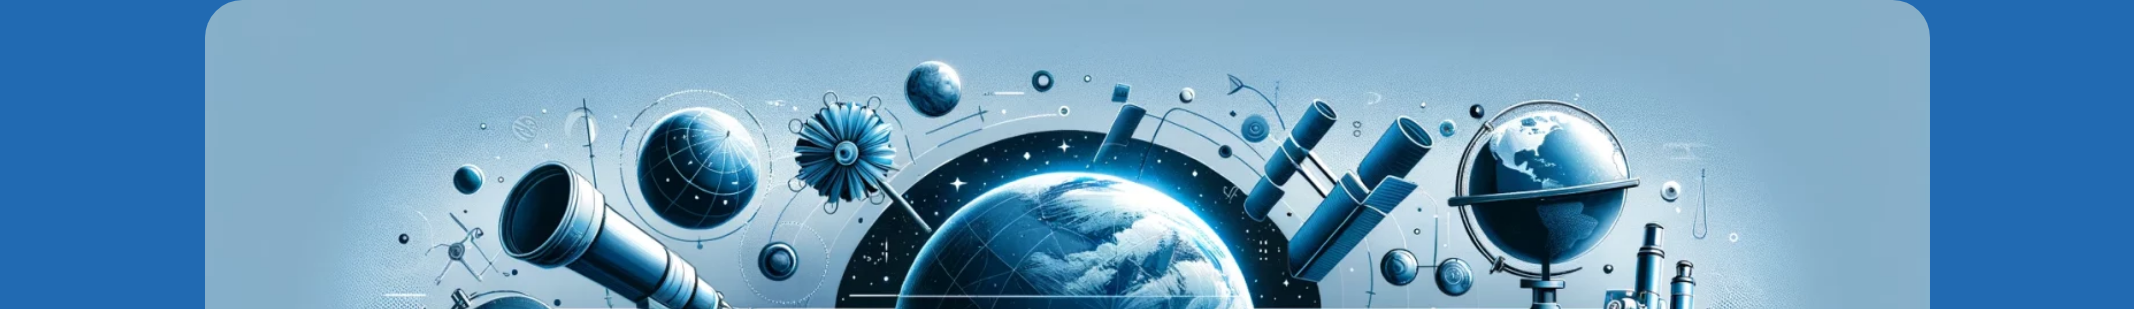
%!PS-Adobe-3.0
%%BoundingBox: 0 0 2134 309
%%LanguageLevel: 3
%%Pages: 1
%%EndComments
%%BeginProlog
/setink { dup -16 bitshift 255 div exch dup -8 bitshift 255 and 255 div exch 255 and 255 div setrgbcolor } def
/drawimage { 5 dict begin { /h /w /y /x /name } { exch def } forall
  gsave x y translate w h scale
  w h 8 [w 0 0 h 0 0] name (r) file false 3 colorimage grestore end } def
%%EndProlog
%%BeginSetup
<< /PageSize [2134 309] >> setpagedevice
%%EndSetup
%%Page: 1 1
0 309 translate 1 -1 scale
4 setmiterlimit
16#216AB2 setink
0 0 2134 309 rectfill
(img1.raw) 205 0 1725 309 drawimage
showpage
%%EOF
